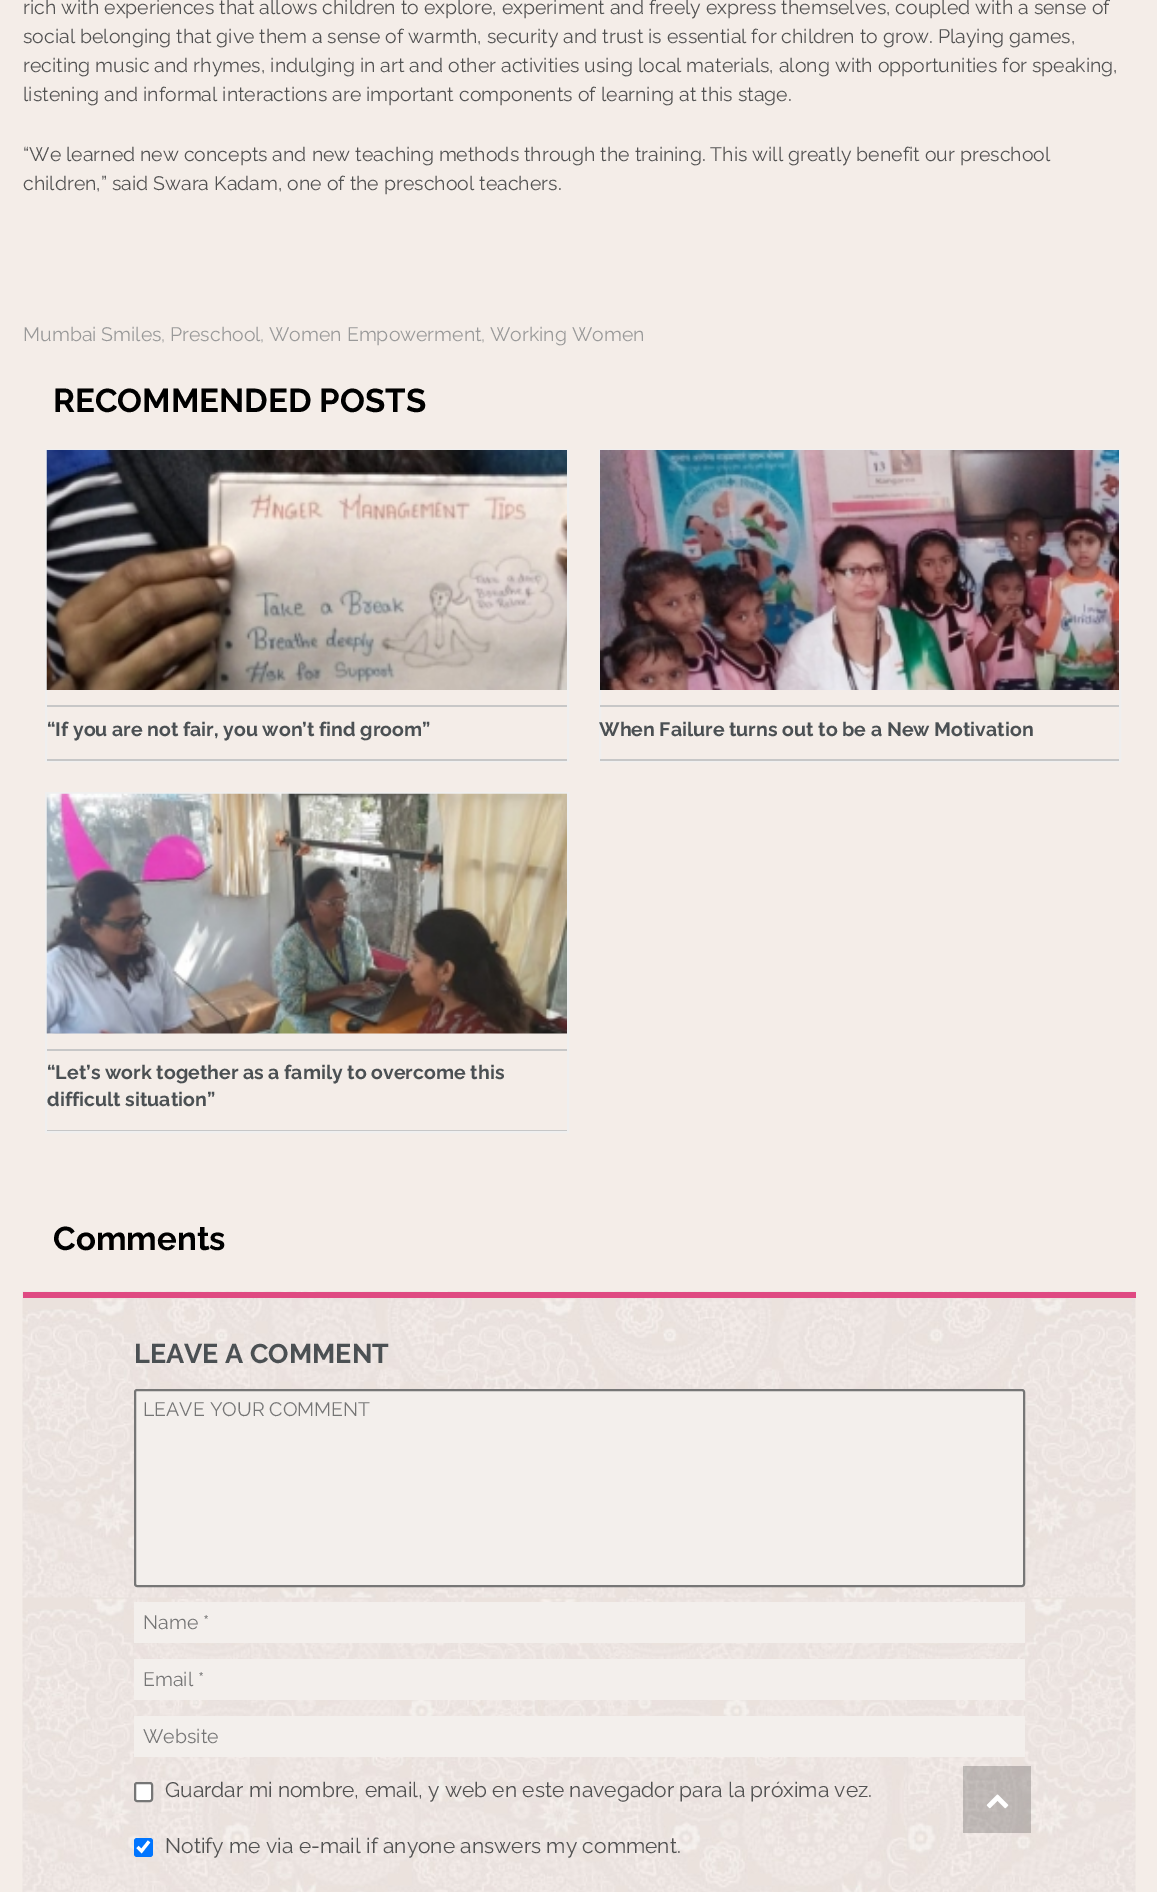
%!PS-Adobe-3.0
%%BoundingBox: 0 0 1157 1892
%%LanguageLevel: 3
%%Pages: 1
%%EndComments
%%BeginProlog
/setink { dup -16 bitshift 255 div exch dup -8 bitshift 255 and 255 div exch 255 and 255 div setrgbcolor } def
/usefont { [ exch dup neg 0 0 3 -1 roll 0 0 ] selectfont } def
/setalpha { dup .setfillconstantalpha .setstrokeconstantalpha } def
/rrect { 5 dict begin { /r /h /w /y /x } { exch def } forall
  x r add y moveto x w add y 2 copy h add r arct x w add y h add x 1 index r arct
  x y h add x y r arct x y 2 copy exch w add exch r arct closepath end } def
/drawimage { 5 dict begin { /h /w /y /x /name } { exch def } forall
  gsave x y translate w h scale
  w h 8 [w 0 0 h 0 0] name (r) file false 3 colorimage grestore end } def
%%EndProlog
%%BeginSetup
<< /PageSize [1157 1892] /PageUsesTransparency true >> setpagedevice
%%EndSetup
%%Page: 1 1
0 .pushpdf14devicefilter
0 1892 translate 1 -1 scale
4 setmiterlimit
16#F4EDE8 setink
0 0 1157 1892 rectfill
/Raleway-Regular 19.5 usefont
16#525252 setink
[
    [(rich with experiences that allows children to explore, experiment and freely express themselves, coupled with a sense of) 23 14]
    [(social belonging that give them a sense of warmth, security and trust is essential for children to grow. Playing games,) 23 43]
    [(reciting music and rhymes, indulging in art and other activities using local materials, along with opportunities for speaking,) 23 72]
    [(listening and informal interactions are important components of learning at this stage.) 23 101]
    [(“We learned new concepts and new teaching methods through the training. This will greatly benefit our preschool) 23 161]
    [(children,” said Swara Kadam, one of the preschool teachers.) 23 190]
] { aload pop moveto show } forall
16#999999 setink
23 341 moveto (Mumbai Smiles) show
/Raleway-Regular 18 usefont
161 341 moveto (,) show
/Raleway-Regular 19.5 usefont
170 341 moveto (Preschool) show
/Raleway-Regular 18 usefont
260 341 moveto (,) show
/Raleway-Regular 19.5 usefont
269 341 moveto (Women Empowerment) show
/Raleway-Regular 18 usefont
481 341 moveto (,) show
/Raleway-Regular 19.5 usefont
490 341 moveto (Working Women) show
/Raleway-Bold 33 usefont
16#000000 setink
53 412 moveto (RECOMMENDED POSTS) show
16#EFEFEF setink
2 setlinewidth
46 450 522 311 rectstroke
(img1.raw) 46 450 521 240 drawimage
16#C7C7C7 setink
47 705 520 2 rectfill
47 759 520 2 rectfill
/Raleway-Bold 19.5 usefont
16#4B5053 setink
47 736 moveto (“If you are not fair, you won’t find groom”) show
16#EFEFEF setink
600 450 520 311 rectstroke
(img2.raw) 600 450 519 240 drawimage
16#C7C7C7 setink
600 705 519 2 rectfill
600 759 519 2 rectfill
16#4B5053 setink
599 736 moveto (When Failure turns out to be a New Motivation) show
16#EFEFEF setink
46 793 522 339 rectstroke
(img3.raw) 46 793 521 241 drawimage
16#C7C7C7 setink
47 1049 520 2 rectfill
47 1130 520 1 rectfill
16#4B5053 setink
47 1079 moveto (“Let’s work together as a family to overcome this) show
47 1106 moveto (difficult situation”) show
/Raleway-Bold 33 usefont
16#000000 setink
53 1250 moveto (Comments) show
(img4.raw) 22 1291 1114 601 drawimage
16#DF4A82 setink
23 1292 1113 6 rectfill
/Raleway-Bold 27 usefont
16#4B5053 setink
134 1363 moveto (LEAVE A COMMENT) show
16#F3EFEC setink
135 1390 889 196 2 rrect gsave fill grestore
16#767676 setink
stroke
/Raleway-Regular 19.5 usefont
16#757575 setink
143 1416 moveto (LEAVE YOUR COMMENT) show
16#F3EFEC setink
134 1602 891 41 rectfill
16#757575 setink
143 1629 moveto (Name *) show
16#F3EFEC setink
134 1659 891 41 rectfill
16#757575 setink
143 1686 moveto (Email *) show
16#F3EFEC setink
134 1716 891 41 rectfill
16#757575 setink
143 1743 moveto (Website) show
16#FFFFFF setink
135 1783 17 18 2 rrect gsave fill grestore
16#767676 setink
stroke
/Raleway-Regular 21 usefont
16#525252 setink
165 1797 moveto (Guardar mi nombre, email, y web en este navegador para la próxima vez.) show
16#0075FF setink
134 1838 19 19 3 rrect fill
16#FFFFFF setink
3.1 setlinewidth
137.5 1847 moveto 141.5 1851 lineto 149 1841.5 lineto stroke
16#525252 setink
165 1853 moveto (Notify me via e-mail if anyone answers my comment.) show
0.2 setalpha
16#000000 setink
963 1766 68 67 rectfill
1 setalpha
(img5.raw) 986 1794 23 15 drawimage
.poppdf14devicefilter showpage
%%EOF
